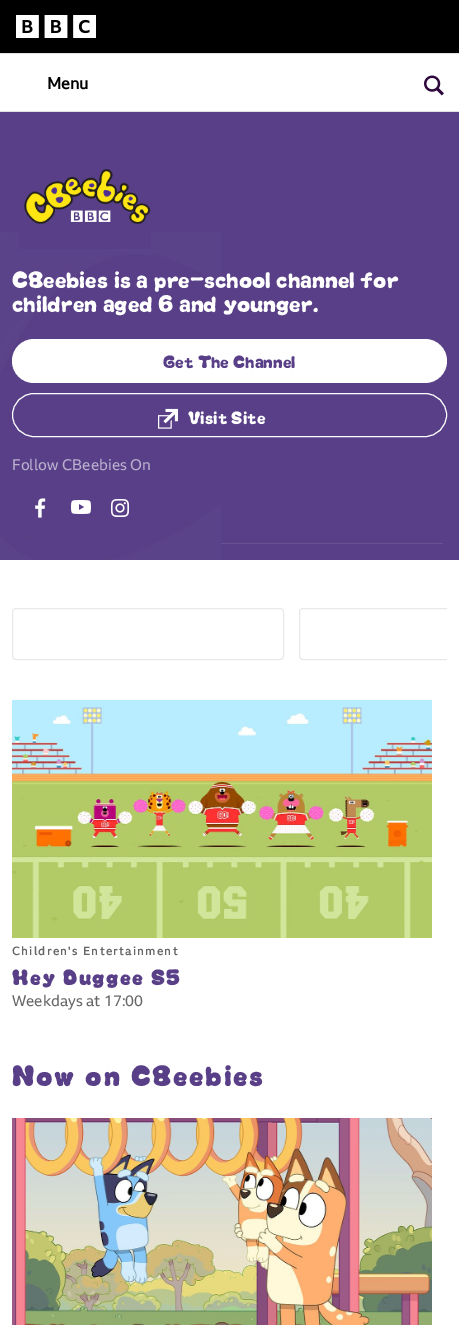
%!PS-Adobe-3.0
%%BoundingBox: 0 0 459 1325
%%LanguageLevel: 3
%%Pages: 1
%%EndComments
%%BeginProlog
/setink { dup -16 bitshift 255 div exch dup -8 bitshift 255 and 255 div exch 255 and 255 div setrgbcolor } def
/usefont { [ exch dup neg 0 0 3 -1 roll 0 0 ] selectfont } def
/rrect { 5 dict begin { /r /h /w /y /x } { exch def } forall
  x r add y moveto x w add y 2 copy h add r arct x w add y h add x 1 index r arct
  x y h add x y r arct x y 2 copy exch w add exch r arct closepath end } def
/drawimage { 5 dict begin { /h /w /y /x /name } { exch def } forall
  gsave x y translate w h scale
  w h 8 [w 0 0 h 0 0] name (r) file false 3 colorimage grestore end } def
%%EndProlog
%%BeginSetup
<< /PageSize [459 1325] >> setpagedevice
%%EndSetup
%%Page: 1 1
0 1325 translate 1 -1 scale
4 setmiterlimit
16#FFFFFF setink
0 0 459 1325 rectfill
16#000000 setink
0 0 459 53 rectfill
16#E0E0E0 setink
0 53 459 1 rectfill
(img1.raw) 16 15 80 23 drawimage
0 111 459 1 rectfill
/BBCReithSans-Bold 16 usefont
16#000000 setink
47 89 moveto (Menu) show
(img2.raw) 424 75 20 21 drawimage
16#583F87 setink
0 112 459 448 rectfill
16#695293 setink
16 543 427 1 rectfill
(img3.raw) 0 232 221 328 drawimage
(img4.raw) 19 169 132 80 drawimage
/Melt-Regular 20 usefont
16#FFFFFF setink
12 288 moveto (CBeebies is a pre-school channel for) show
12 312 moveto (children aged 6 and younger.) show
12 339 435 44 22 rrect fill
/Melt-Regular 15 usefont
16#583F87 setink
163 368 moveto (Get The Channel) show
16#FFFFFF setink
12.5 393.5 434 43 21.5 rrect stroke
(img5.raw) 158 408 20 21 drawimage
188 424 moveto (Visit Site) show
/BBCReithSans-Regular 15 usefont
16#BCB2CF setink
12 470 moveto (Follow CBeebies On) show
(img6.raw) 35 498 11 20 drawimage
(img7.raw) 71 500 20 14 drawimage
(img8.raw) 111 499 18 19 drawimage
16#E9E9E9 setink
12.5 608.5 271 51 3.5 rrect stroke
gsave
12 601 435 69 rectclip
299.5 608.5 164 51 3.5 rrect stroke
grestore
(img9.raw) 12 700 420 238 drawimage
/BBCReithSans-Bold 11.25 usefont
16#666666 setink
12 955 moveto 1.5 0 (Children's Entertainment) ashow
/Melt-Bold 18 usefont
16#583F87 setink
12 985 moveto 1.75 0 (Hey Duggee S5) ashow
/BBCReithSans-Regular 15 usefont
16#666666 setink
12 1006 moveto (Weekdays at 17:00) show
/Melt-Bold 24 usefont
16#583F87 setink
12 1086 moveto 2.4 0 (Now on CBeebies) ashow
(img10.raw) 12 1118 420 207 drawimage
showpage
%%EOF
